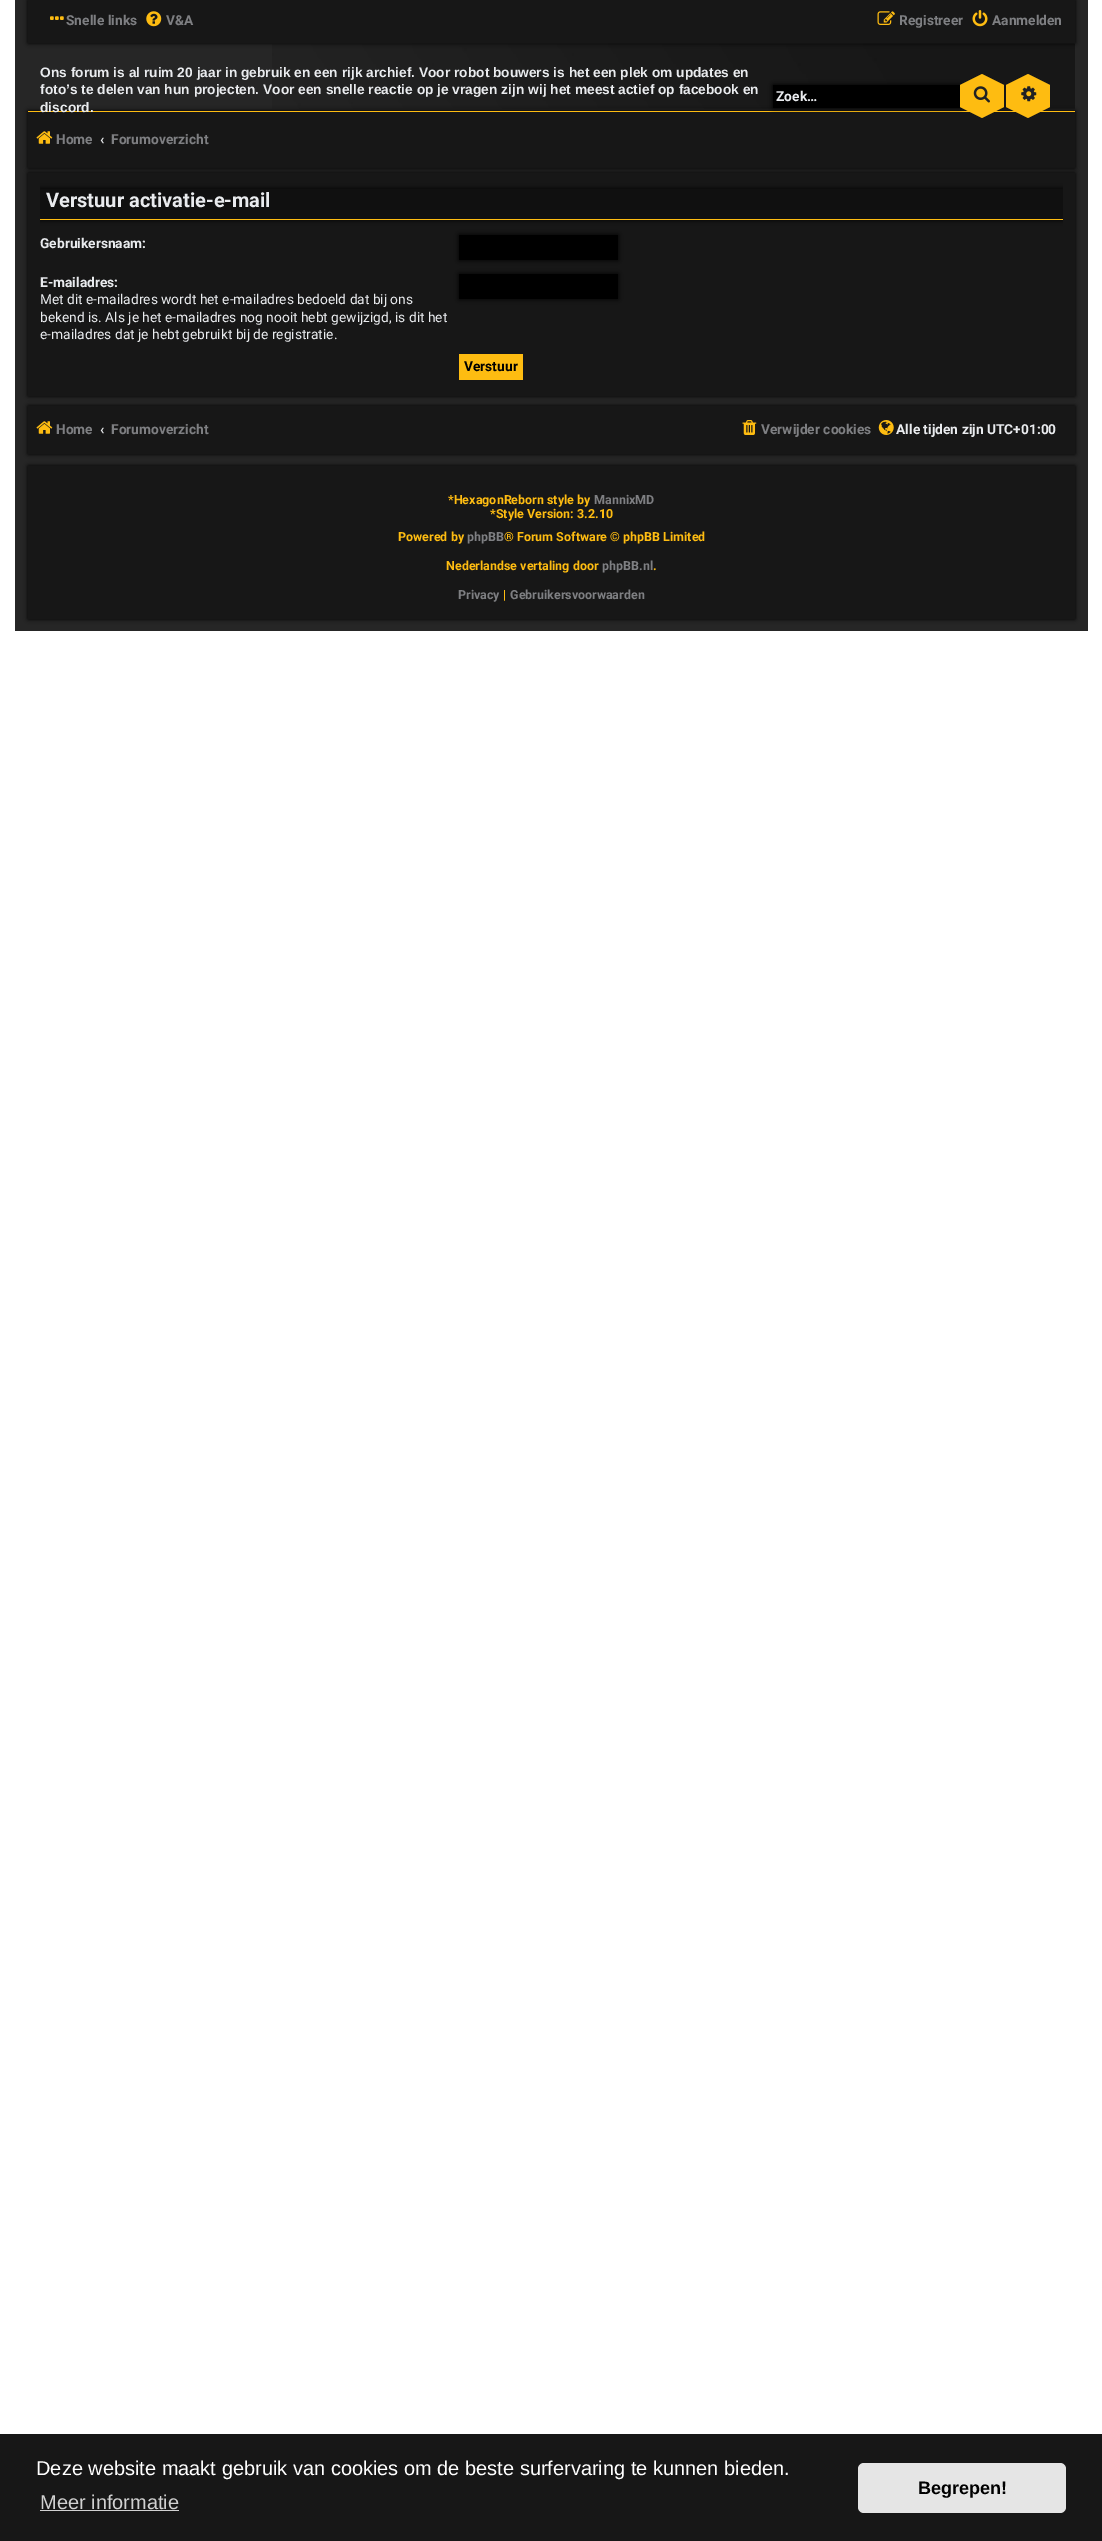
%!PS-Adobe-3.0
%%BoundingBox: 0 0 1102 2541
%%LanguageLevel: 3
%%Pages: 1
%%EndComments
%%BeginProlog
/setink { dup -16 bitshift 255 div exch dup -8 bitshift 255 and 255 div exch 255 and 255 div setrgbcolor } def
/usefont { [ exch dup neg 0 0 3 -1 roll 0 0 ] selectfont } def
/setalpha { dup .setfillconstantalpha .setstrokeconstantalpha } def
/rrect { 5 dict begin { /r /h /w /y /x } { exch def } forall
  x r add y moveto x w add y 2 copy h add r arct x w add y h add x 1 index r arct
  x y h add x y r arct x y 2 copy exch w add exch r arct closepath end } def
/softshadow { 12 dict begin { /a /b /q /h /w /y /x } { exch def } forall gsave /was 0 def
  9 -2 -9 { dup b mul 4 div /e exch def 1 sub .425 mul 2.718 exch exp 1 add a .99 .min exch div /now exch def
    1 1 now sub 1 was sub div sub setalpha /was now def
    w h .min e 2 mul add 0 gt { x e sub y e sub w e 2 mul add h e 2 mul add
      q e add b .6 mul add w h .min 2 div e add .min 0 .max rrect fill } if } for grestore end } def
/drawimage { 5 dict begin { /h /w /y /x /name } { exch def } forall
  gsave x y translate w h scale
  w h 8 [w 0 0 h 0 0] name (r) file false 3 colorimage grestore end } def
%%EndProlog
%%BeginSetup
<< /PageSize [1102 2541] /PageUsesTransparency true >> setpagedevice
%%EndSetup
%%Page: 1 1
0 .pushpdf14devicefilter
0 2541 translate 1 -1 scale
4 setmiterlimit
16#FFFFFF setink
0 0 1102 2541 rectfill
16#262626 setink
15 0 1073 631 rectfill
(img5.raw) 272 43 803 66 drawimage
16#000000 setink
28 0 1047 43 0 2.5 1 softshadow
16#171717 setink
28 0 1047 43 rectfill
(img1.raw) 50 16 14 4 drawimage
/Roboto-Bold 13.75 usefont
16#7E7F82 setink
66 25 moveto (Snelle links) show
(img2.raw) 146 11 16 16 drawimage
166 25 moveto (V&A) show
(img3.raw) 877 11 18 14 drawimage
899 25 moveto (Registreer) show
(img4.raw) 972 10 16 17 drawimage
992 25 moveto (Aanmelden) show
/LiberationSans-Bold 13.75 usefont
16#E9EBEE setink
40 77 moveto (Ons forum is al ruim 20 jaar in gebruik en een rijk archief. Voor robot bouwers is het een plek om updates en) show
40 94 moveto (foto’s te delen van hun projecten. Voor een snelle reactie op je vragen zijn wij het meest actief op facebook en) show
16#000000 setink
28 111 1047 57 0 2.5 1 softshadow
16#171717 setink
28 112 1047 56 rectfill
16#FEBC11 setink
28 111 1047 1 rectfill
16#E9EBEE setink
40 112 moveto (discord.) show
16#000000 setink
773 85 187 23 0 2.5 1 softshadow
773 85 187 23 rectfill
/Roboto-Bold 13.75 usefont
16#E9EBEE setink
776 101 moveto (Zoek…) show
16#FEBC11 setink
960 85 moveto 982 74 lineto 1004 85 lineto 1004 107 lineto 982 118 lineto 960 107 lineto closepath fill
(img6.raw) 973 86 17 17 drawimage
1006 85 moveto 1028 74 lineto 1050 85 lineto 1050 107 lineto 1028 118 lineto 1006 107 lineto closepath fill
(img7.raw) 1021 86 16 16 drawimage
(img8.raw) 36 131 17 13 drawimage
16#7E7F82 setink
56 144 moveto (Home) show
16#E9EBEE setink
100 144 moveto (‹) show
16#7E7F82 setink
111 144 moveto (Forumoverzicht) show
16#000000 setink
28 173 1047 223 0 2.5 1 softshadow
16#171717 setink
28 173 1047 223 rectfill
gsave
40 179 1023 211 rectclip
16#000000 setink
40 189 1023 31 0 2.5 1 softshadow
grestore
16#101010 setink
40 189 1023 30 rectfill
16#FEBC11 setink
40 219 1023 1 rectfill
/Roboto-Bold 20 usefont
16#E9EBEE setink
46 207 moveto (Verstuur activatie-e-mail) show
/Roboto-Bold 13.75 usefont
40 248 moveto (Gebruikersnaam:) show
16#000000 setink
459 235 159 25 0 2.5 1 softshadow
459 235 159 25 rectfill
16#E9EBEE setink
40 287 moveto (E-mailadres:) show
/Roboto-Regular 13.75 usefont
[
    [(Met dit e-mailadres wordt het e-mailadres bedoeld dat bij ons) 40 304]
    [(bekend is. Als je het e-mailadres nog nooit hebt gewijzigd, is dit het) 40 322]
    [(e-mailadres dat je hebt gebruikt bij de registratie.) 40 339]
] { aload pop moveto show } forall
16#000000 setink
459 274 159 25 0 2.5 1 softshadow
459 274 159 25 rectfill
16#FEBC11 setink
459 354 64 26 rectfill
/Roboto-Bold 13.75 usefont
16#000000 setink
464 371 moveto (Verstuur) show
28 406 1047 48 0 2.5 1 softshadow
16#171717 setink
28 406 1047 48 rectfill
(img8.raw) 36 421 17 13 drawimage
16#7E7F82 setink
56 434 moveto (Home) show
16#E9EBEE setink
100 434 moveto (‹) show
16#7E7F82 setink
111 434 moveto (Forumoverzicht) show
(img9.raw) 742 420 15 15 drawimage
761 434 moveto (Verwijder cookies) show
(img10.raw) 878 420 16 15 drawimage
16#E9EBEE setink
896 434 moveto (Alle tijden zijn UTC+01:00) show
16#000000 setink
28 466 1047 153 0 2.5 1 softshadow
16#171717 setink
28 466 1047 153 rectfill
/Roboto-Bold 12.5 usefont
16#FEBC11 setink
448 504 moveto (*HexagonReborn style by) show
16#7E7F82 setink
594 504 moveto (MannixMD) show
16#FEBC11 setink
490 518 moveto (*Style Version: 3.2.10) show
398 541 moveto (Powered by) show
16#7E7F82 setink
467 541 moveto (phpBB) show
16#FEBC11 setink
504 541 moveto (® Forum Software © phpBB Limited) show
446 570 moveto (Nederlandse vertaling door) show
16#7E7F82 setink
602 570 moveto (phpBB.nl) show
16#FEBC11 setink
653 570 moveto (.) show
16#7E7F82 setink
458 599 moveto (Privacy) show
16#FEBC11 setink
503 599 moveto (|) show
16#7E7F82 setink
510 599 moveto (Gebruikersvoorwaarden) show
16#171717 setink
0 2434 1102 107 rectfill
/LiberationSans-Regular 20 usefont
16#FFFFFF setink
36 2475 moveto (Deze website maakt gebruik van cookies om de beste surfervaring te kunnen bieden.) show
16#D1D1D1 setink
40 2509 moveto (Meer informatie) show
40 2510 139 1 rectfill
16#E5E5E5 setink
858 2463 208 50 6 rrect fill
/LiberationSans-Bold 18 usefont
16#000000 setink
918 2494 moveto (Begrepen!) show
.poppdf14devicefilter showpage
%%EOF
